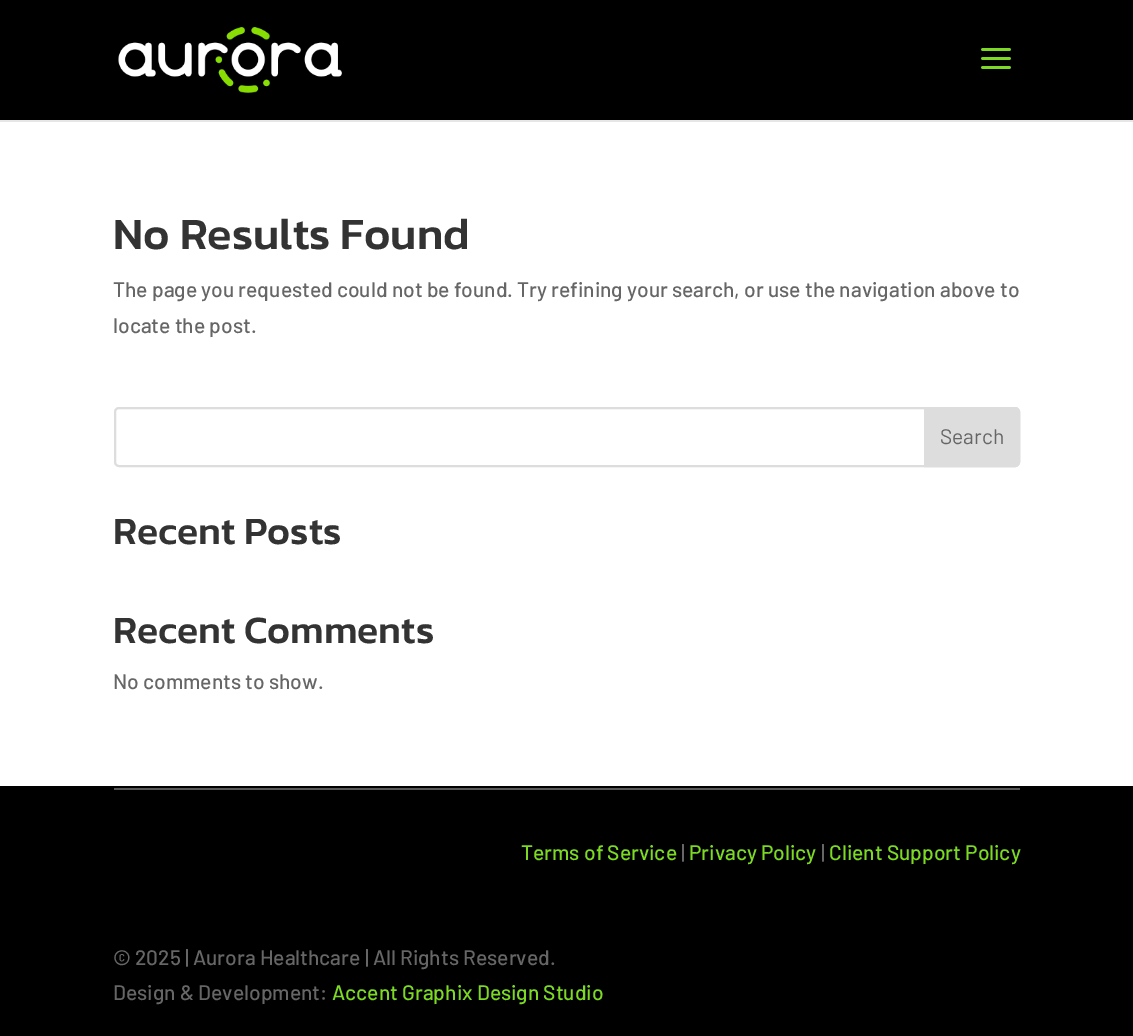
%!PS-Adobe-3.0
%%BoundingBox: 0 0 1133 1036
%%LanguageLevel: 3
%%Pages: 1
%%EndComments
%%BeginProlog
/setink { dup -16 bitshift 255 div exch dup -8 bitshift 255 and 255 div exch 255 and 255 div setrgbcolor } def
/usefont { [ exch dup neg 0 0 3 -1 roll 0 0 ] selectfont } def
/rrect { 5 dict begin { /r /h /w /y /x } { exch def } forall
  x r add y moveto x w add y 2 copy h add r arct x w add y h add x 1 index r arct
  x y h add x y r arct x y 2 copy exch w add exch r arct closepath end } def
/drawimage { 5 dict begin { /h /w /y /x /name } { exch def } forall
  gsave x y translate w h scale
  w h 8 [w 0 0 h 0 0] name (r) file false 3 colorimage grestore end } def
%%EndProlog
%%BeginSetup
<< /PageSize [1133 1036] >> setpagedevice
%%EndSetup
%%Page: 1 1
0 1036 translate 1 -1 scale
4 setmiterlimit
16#FFFFFF setink
0 0 1133 1036 rectfill
16#E6E6E6 setink
0 120 1133 2 rectfill
16#000000 setink
0 0 1133 120 rectfill
(img1.raw) 118 27 224 66 drawimage
(img2.raw) 981 48 30 21 drawimage
/Kanit-Medium 45 usefont
16#333333 setink
113 249 moveto (No Results Found) show
/Barlow-Medium 21 usefont
16#666666 setink
113 297 moveto (The page you requested could not be found. Try refining your search, or use the navigation above to) show
113 333 moveto (locate the post.) show
16#DDDDDD setink
2 setlinewidth
115 408 904 58 4 rrect stroke
925 408 moveto 1015 408 lineto 1017 408 1019 410 1019 412 curveto 1019 462 lineto 1019 464 1017 466 1015 466 curveto 925 466 lineto closepath gsave fill grestore
stroke
/Barlow-Regular 21 usefont
16#666666 setink
940 444 moveto (Search) show
/Kanit-Medium 39 usefont
16#333333 setink
113 544 moveto (Recent Posts) show
113 643 moveto (Recent Comments) show
/Barlow-Medium 21 usefont
16#666666 setink
113 689 moveto (No comments to show.) show
16#000000 setink
0 786 1133 250 rectfill
16#595959 setink
114 788 906 2 rectfill
16#7CDA24 setink
521 860 moveto (Terms of Service) show
16#666666 setink
681 860 moveto (|) show
16#7CDA24 setink
689 860 moveto (Privacy Policy) show
16#666666 setink
821 860 moveto (|) show
16#7CDA24 setink
829 860 moveto (Client Support Policy) show
16#666666 setink
113 965 moveto (© 2025 | Aurora Healthcare | All Rights Reserved.) show
113 1000 moveto (Design & Development:) show
16#7CDA24 setink
332 1000 moveto (Accent Graphix Design Studio) show
showpage
%%EOF
